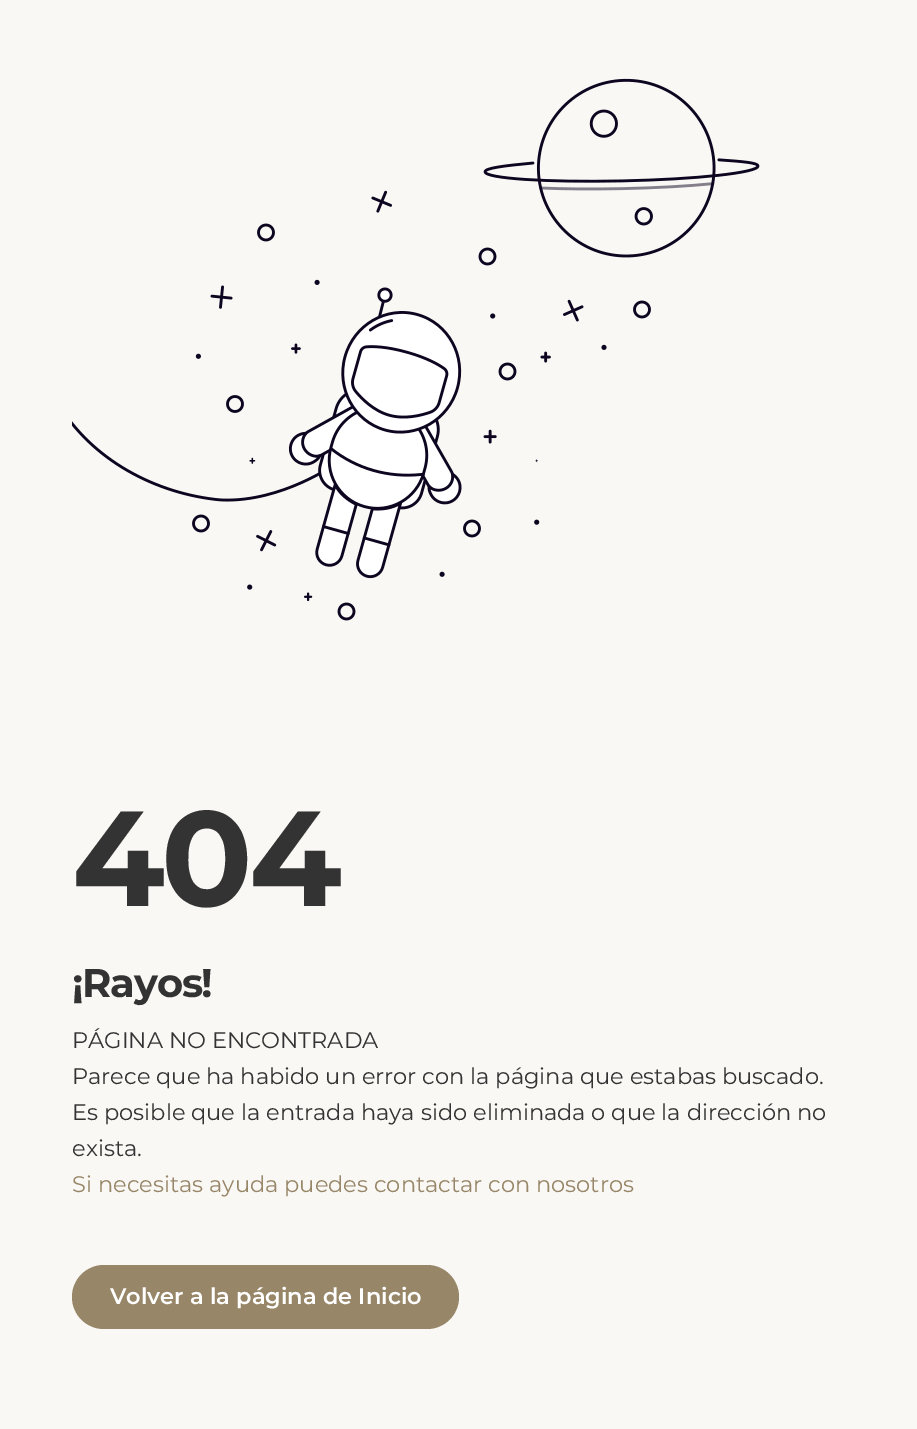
%!PS-Adobe-3.0
%%BoundingBox: 0 0 917 1429
%%LanguageLevel: 3
%%Pages: 1
%%EndComments
%%BeginProlog
/setink { dup -16 bitshift 255 div exch dup -8 bitshift 255 and 255 div exch 255 and 255 div setrgbcolor } def
/usefont { [ exch dup neg 0 0 3 -1 roll 0 0 ] selectfont } def
/rrect { 5 dict begin { /r /h /w /y /x } { exch def } forall
  x r add y moveto x w add y 2 copy h add r arct x w add y h add x 1 index r arct
  x y h add x y r arct x y 2 copy exch w add exch r arct closepath end } def
/drawimage { 5 dict begin { /h /w /y /x /name } { exch def } forall
  gsave x y translate w h scale
  w h 8 [w 0 0 h 0 0] name (r) file false 3 colorimage grestore end } def
%%EndProlog
%%BeginSetup
<< /PageSize [917 1429] >> setpagedevice
%%EndSetup
%%Page: 1 1
0 1429 translate 1 -1 scale
4 setmiterlimit
16#FAF8F5 setink
0 0 917 1429 rectfill
(img1.raw) 72 78 688 543 drawimage
/Montserrat-Bold 135 usefont
16#333333 setink
72 906 moveto -4 0 (404) ashow
/Montserrat-Bold 40 usefont
72 997 moveto -1.25 0 (¡Rayos!) ashow
/Montserrat-Regular 22.5 usefont
[
    [(PÁGINA NO ENCONTRADA) 72 1048]
    [(Parece que ha habido un error con la página que estabas buscado.) 72 1084]
    [(Es posible que la entrada haya sido eliminada o que la dirección no) 72 1120]
    [(exista.) 72 1156]
] { aload pop moveto show } forall
16#978667 setink
72 1192 moveto (Si necesitas ayuda puedes contactar con nosotros) show
72 1265 387 64 32 rrect fill
/Montserrat-SemiBold 22.5 usefont
16#FFFFFF setink
110 1304 moveto (Volver a la página de Inicio) show
showpage
%%EOF
